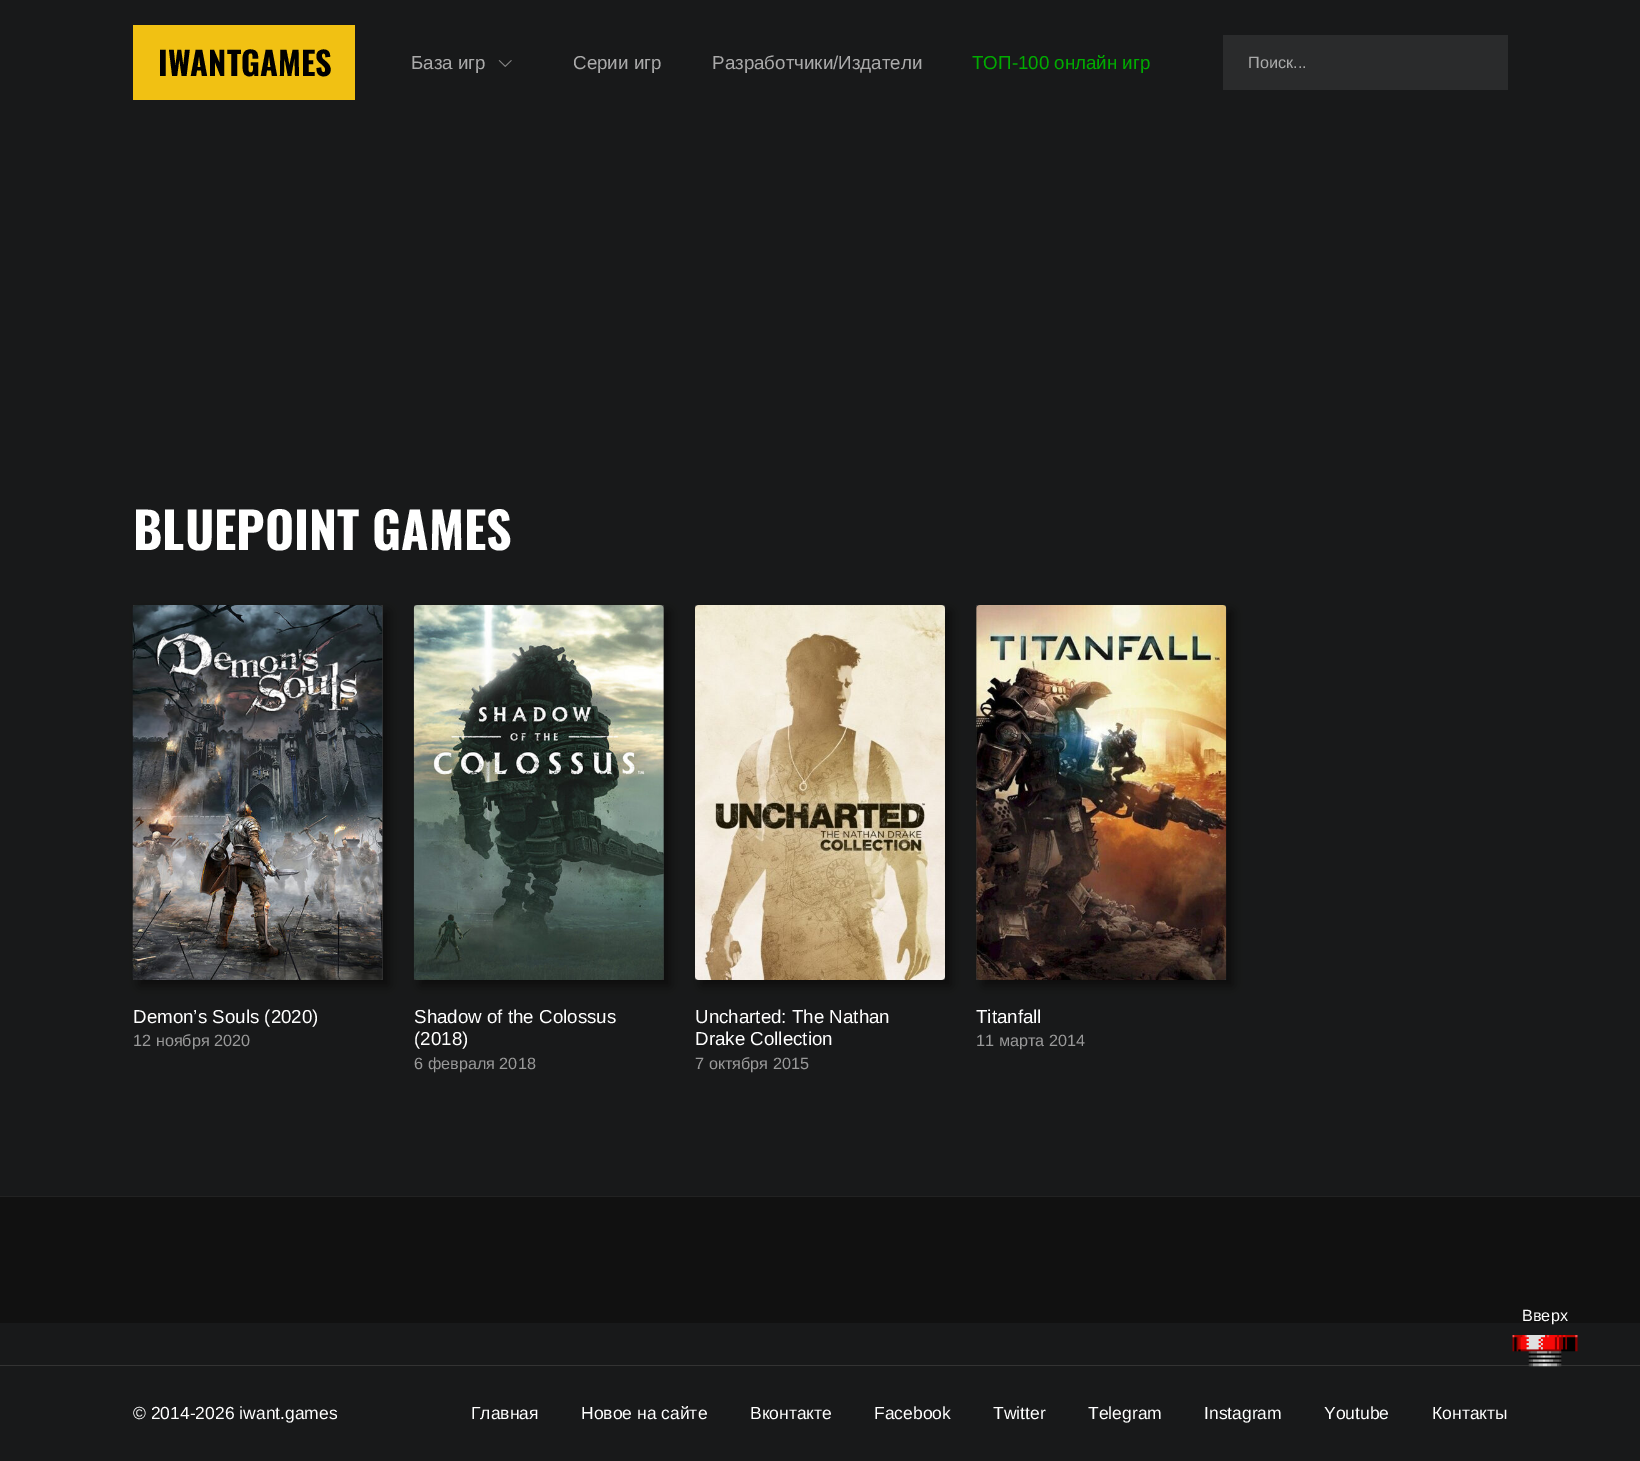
%!PS-Adobe-3.0
%%BoundingBox: 0 0 1640 1461
%%LanguageLevel: 3
%%Pages: 1
%%EndComments
%%BeginProlog
/setink { dup -16 bitshift 255 div exch dup -8 bitshift 255 and 255 div exch 255 and 255 div setrgbcolor } def
/usefont { [ exch dup neg 0 0 3 -1 roll 0 0 ] selectfont } def
/setalpha { dup .setfillconstantalpha .setstrokeconstantalpha } def
/rrect { 5 dict begin { /r /h /w /y /x } { exch def } forall
  x r add y moveto x w add y 2 copy h add r arct x w add y h add x 1 index r arct
  x y h add x y r arct x y 2 copy exch w add exch r arct closepath end } def
/softshadow { 12 dict begin { /a /b /q /h /w /y /x } { exch def } forall gsave /was 0 def
  9 -2 -9 { dup b mul 4 div /e exch def 1 sub .425 mul 2.718 exch exp 1 add a .99 .min exch div /now exch def
    1 1 now sub 1 was sub div sub setalpha /was now def
    w h .min e 2 mul add 0 gt { x e sub y e sub w e 2 mul add h e 2 mul add
      q e add b .6 mul add w h .min 2 div e add .min 0 .max rrect fill } if } for grestore end } def
/drawimage { 5 dict begin { /h /w /y /x /name } { exch def } forall
  gsave x y translate w h scale
  w h 8 [w 0 0 h 0 0] name (r) file false 3 colorimage grestore end } def
%%EndProlog
%%BeginSetup
<< /PageSize [1640 1461] /PageUsesTransparency true >> setpagedevice
%%EndSetup
%%Page: 1 1
0 .pushpdf14devicefilter
0 1461 translate 1 -1 scale
4 setmiterlimit
16#18191A setink
0 0 1640 1461 rectfill
16#F1C113 setink
133 25 222 75 rectfill
/Oswald-Bold 32.5 usefont
16#000000 setink
158 76 moveto (IWANTGAMES) show
/LiberationSans-Regular 18.75 usefont
16#AAAAAA setink
411 69 moveto (База игр) show
(img1.raw) 498 60 14 7 drawimage
573 69 moveto (Серии игр) show
712 69 moveto (Разработчики/Издатели) show
16#00AB00 setink
972 69 moveto (ТОП-100 онлайн игр) show
16#2A2B2C setink
1223 35 285 55 rectfill
/LiberationSans-Regular 16.25 usefont
16#AAAAAA setink
1248 68 moveto (Поиск...) show
/Oswald-Bold 50 usefont
16#FFFFFF setink
133 550 moveto (BLUEPOINT GAMES) show
16#000000 setink
139 611 250 375 0 6 0.5 softshadow
16#333333 setink
133 605 250 375 rectfill
(img2.raw) 132 605 251 375 drawimage
/LiberationSans-Regular 18.75 usefont
16#FFFFFF setink
133 1023 moveto (Demon’s Souls \(2020\)) show
/LiberationSans-Regular 16.25 usefont
16#999999 setink
133 1046 moveto (12 ноября 2020) show
16#000000 setink
420 611 250 375 0 6 0.5 softshadow
16#333333 setink
414 605 250 375 rectfill
(img3.raw) 413 605 251 375 drawimage
/LiberationSans-Regular 18.75 usefont
16#FFFFFF setink
414 1023 moveto (Shadow of the Colossus) show
414 1045 moveto (\(2018\)) show
/LiberationSans-Regular 16.25 usefont
16#999999 setink
414 1069 moveto (6 февраля 2018) show
16#000000 setink
701 611 250 375 0 6 0.5 softshadow
16#333333 setink
695 605 250 375 rectfill
(img4.raw) 695 605 250 375 drawimage
/LiberationSans-Regular 18.75 usefont
16#FFFFFF setink
695 1023 moveto (Uncharted: The Nathan) show
695 1045 moveto (Drake Collection) show
/LiberationSans-Regular 16.25 usefont
16#999999 setink
695 1069 moveto (7 октября 2015) show
16#000000 setink
983 611 250 375 0 6 0.5 softshadow
16#333333 setink
976 605 250 375 rectfill
(img5.raw) 976 605 251 375 drawimage
/LiberationSans-Regular 18.75 usefont
16#FFFFFF setink
976 1023 moveto (Titanfall) show
/LiberationSans-Regular 16.25 usefont
16#999999 setink
976 1046 moveto (11 марта 2014) show
[
    [0 1197 1640 126 16#111111]
    [0 1196 1640 1 16#222222]
    [0 1365 1640 1 16#333333]
] { aload pop setink rectfill } forall
(img6.raw) 1512 1335 66 32 drawimage
16#FFFFFF setink
1522 1321 moveto (Вверх) show
/LiberationSans-Regular 17.5 usefont
[
    [(© 2014-2026 iwant.games) 133 1419]
    [(Главная) 471 1419]
    [(Новое на сайте) 581 1419]
    [(Вконтакте) 750 1419]
    [(Facebook) 874 1419]
    [(Twitter) 993 1419]
    [(Telegram) 1088 1419]
    [(Instagram) 1204 1419]
    [(Youtube) 1324 1419]
    [(Контакты) 1432 1419]
] { aload pop moveto show } forall
.poppdf14devicefilter showpage
%%EOF
